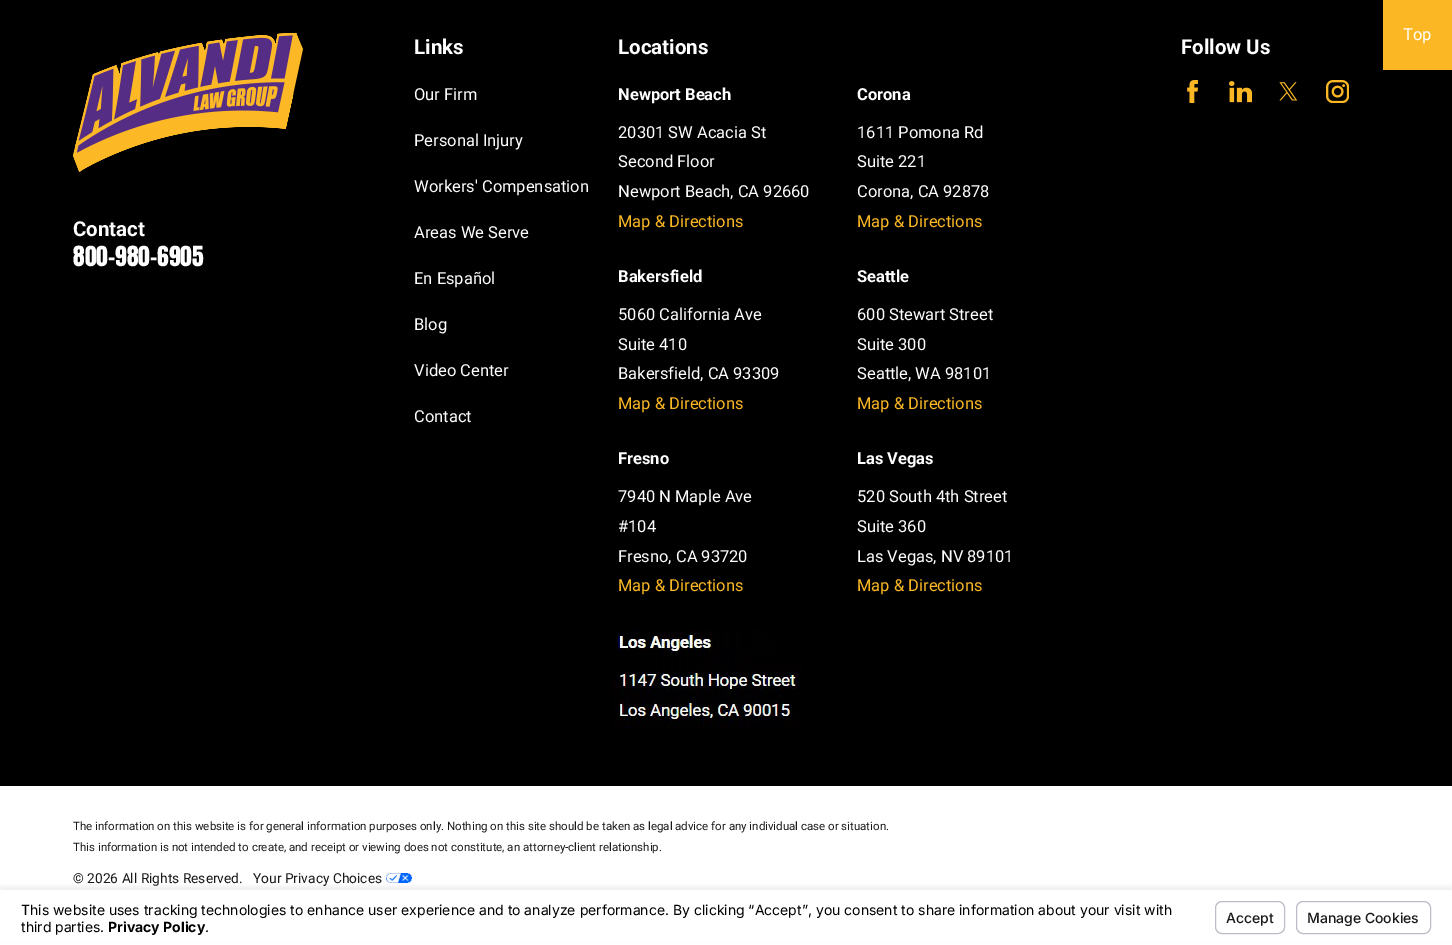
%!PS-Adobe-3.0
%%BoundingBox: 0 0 1452 945
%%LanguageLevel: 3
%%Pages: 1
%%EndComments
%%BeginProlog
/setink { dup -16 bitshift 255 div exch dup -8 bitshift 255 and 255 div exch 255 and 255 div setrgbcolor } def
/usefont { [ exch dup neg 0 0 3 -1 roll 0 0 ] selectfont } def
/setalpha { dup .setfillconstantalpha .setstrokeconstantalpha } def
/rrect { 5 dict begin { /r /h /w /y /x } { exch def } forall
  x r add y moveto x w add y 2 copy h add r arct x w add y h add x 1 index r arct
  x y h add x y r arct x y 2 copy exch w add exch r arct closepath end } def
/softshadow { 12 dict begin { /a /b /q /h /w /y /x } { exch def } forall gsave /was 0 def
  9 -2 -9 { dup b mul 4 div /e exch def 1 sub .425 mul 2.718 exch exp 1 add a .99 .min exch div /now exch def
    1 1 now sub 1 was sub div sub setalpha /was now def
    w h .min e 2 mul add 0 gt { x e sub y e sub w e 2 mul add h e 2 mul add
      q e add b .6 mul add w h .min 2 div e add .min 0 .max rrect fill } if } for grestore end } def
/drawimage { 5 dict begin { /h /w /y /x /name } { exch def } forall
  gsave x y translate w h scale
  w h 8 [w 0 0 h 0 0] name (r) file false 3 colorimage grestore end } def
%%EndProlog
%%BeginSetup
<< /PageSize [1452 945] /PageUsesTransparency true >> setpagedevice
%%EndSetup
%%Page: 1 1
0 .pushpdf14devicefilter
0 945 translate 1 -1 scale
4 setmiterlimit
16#FFFFFF setink
0 0 1452 945 rectfill
16#000000 setink
0 0 1452 786 rectfill
16#FBB824 setink
1383 0 69 70 rectfill
/Roboto-Regular 16.5 usefont
16#FFFFFF setink
1403 40 moveto (Top) show
(img1.raw) 73 32 230 140 drawimage
/Roboto-Bold 20.5 usefont
73 236 moveto (Contact) show
/Anton-Regular 23.5 usefont
73 266 moveto (800-980-6905) show
/Roboto-Bold 20.5 usefont
414 54 moveto (Links) show
/Roboto-Regular 16.5 usefont
[
    [(Our Firm) 414 100]
    [(Personal Injury) 414 146]
    [(Workers' Compensation) 414 192]
    [(Areas We Serve) 414 238]
    [(En Español) 414 284]
    [(Blog) 414 330]
    [(Video Center) 414 376]
    [(Contact) 414 422]
] { aload pop moveto show } forall
/Roboto-Bold 20.5 usefont
618 54 moveto (Locations) show
/Roboto-Bold 16.5 usefont
618 100 moveto (Newport Beach) show
/Roboto-Regular 16.5 usefont
[
    [(20301 SW Acacia St) 618 138]
    [(Second Floor) 618 167]
    [(Newport Beach, CA 92660) 618 197]
] { aload pop moveto show } forall
16#FBB824 setink
618 227 moveto (Map & Directions) show
/Roboto-Bold 16.5 usefont
16#FFFFFF setink
857 100 moveto (Corona) show
/Roboto-Regular 16.5 usefont
[
    [(1611 Pomona Rd) 857 138]
    [(Suite 221) 857 167]
    [(Corona, CA 92878) 857 197]
] { aload pop moveto show } forall
16#FBB824 setink
857 227 moveto (Map & Directions) show
/Roboto-Bold 16.5 usefont
16#FFFFFF setink
618 282 moveto (Bakersfield) show
/Roboto-Regular 16.5 usefont
[
    [(5060 California Ave) 618 320]
    [(Suite 410) 618 350]
    [(Bakersfield, CA 93309) 618 379]
] { aload pop moveto show } forall
16#FBB824 setink
618 409 moveto (Map & Directions) show
/Roboto-Bold 16.5 usefont
16#FFFFFF setink
857 282 moveto (Seattle) show
/Roboto-Regular 16.5 usefont
[
    [(600 Stewart Street) 857 320]
    [(Suite 300) 857 350]
    [(Seattle, WA 98101) 857 379]
] { aload pop moveto show } forall
16#FBB824 setink
857 409 moveto (Map & Directions) show
/Roboto-Bold 16.5 usefont
16#FFFFFF setink
618 464 moveto (Fresno) show
/Roboto-Regular 16.5 usefont
[
    [(7940 N Maple Ave) 618 502]
    [(#104) 618 532]
    [(Fresno, CA 93720) 618 562]
] { aload pop moveto show } forall
16#FBB824 setink
618 591 moveto (Map & Directions) show
/Roboto-Bold 16.5 usefont
16#FFFFFF setink
857 464 moveto (Las Vegas) show
/Roboto-Regular 16.5 usefont
[
    [(520 South 4th Street) 857 502]
    [(Suite 360) 857 532]
    [(Las Vegas, NV 89101) 857 562]
] { aload pop moveto show } forall
16#FBB824 setink
857 591 moveto (Map & Directions) show
(img2.raw) 612 629 190 99 drawimage
/Roboto-Bold 20.5 usefont
16#FFFFFF setink
1181 54 moveto (Follow Us) show
(img3.raw) 1187 80 11 23 drawimage
(img4.raw) 1229 81 23 22 drawimage
(img5.raw) 1279 82 19 19 drawimage
(img6.raw) 1326 80 23 23 drawimage
/Roboto-Regular 11.5 usefont
16#191919 setink
73 830 moveto (The information on this website is for general information purposes only. Nothing on this site should be taken as legal advice for any individual case or situation.) show
73 851 moveto (This information is not intended to create, and receipt or viewing does not constitute, an attorney-client relationship.) show
/Roboto-Regular 13.75 usefont
73 883 moveto (© 2026 All Rights Reserved.) show
253 883 moveto (Your Privacy Choices) show
(img7.raw) 386 873 26 10 drawimage
16#000000 setink
0 886 1452 55 0 1.5 0.05 softshadow
16#FFFFFF setink
0 890 1452 52 rectfill
/Inter-Regular 14 usefont
16#000000 setink
21 915 moveto (This website uses tracking technologies to enhance user experience and to analyze performance. By clicking “Accept”, you consent to share information about your visit with) show
21 932 moveto (third parties.) show
/Inter-Bold 14 usefont
108 932 moveto (Privacy Policy) show
/Inter-Regular 14 usefont
205 932 moveto (.) show
16#BCBEC7 setink
1215.5 901.5 69 32 6.5 rrect stroke
/Inter-Medium 14 usefont
16#191919 setink
1226 923 moveto (Accept) show
16#BCBEC7 setink
1296.5 901.5 134 32 6.5 rrect stroke
16#191919 setink
1307 923 moveto (Manage Cookies) show
.poppdf14devicefilter showpage
%%EOF
